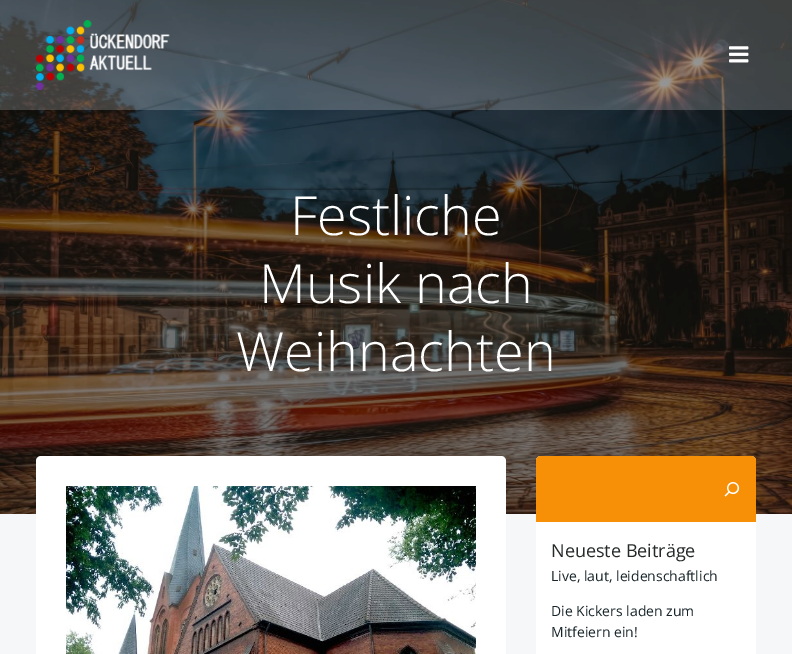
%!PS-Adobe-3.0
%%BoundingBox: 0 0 792 654
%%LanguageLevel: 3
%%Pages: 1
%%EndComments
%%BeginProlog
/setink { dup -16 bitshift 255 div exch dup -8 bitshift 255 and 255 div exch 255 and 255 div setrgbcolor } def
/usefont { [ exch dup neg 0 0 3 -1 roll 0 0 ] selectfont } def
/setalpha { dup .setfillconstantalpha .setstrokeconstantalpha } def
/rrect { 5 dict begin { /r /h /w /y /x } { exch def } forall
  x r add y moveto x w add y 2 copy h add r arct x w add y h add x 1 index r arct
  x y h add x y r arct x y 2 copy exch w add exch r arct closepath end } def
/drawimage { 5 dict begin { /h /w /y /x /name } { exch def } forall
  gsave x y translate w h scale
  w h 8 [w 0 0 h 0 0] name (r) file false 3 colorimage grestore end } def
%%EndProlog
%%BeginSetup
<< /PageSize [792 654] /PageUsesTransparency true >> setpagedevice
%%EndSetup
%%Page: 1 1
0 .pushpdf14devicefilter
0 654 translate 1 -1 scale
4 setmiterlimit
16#FFFFFF setink
0 0 792 654 rectfill
(img3.raw) 0 0 792 514 drawimage
0.2 setalpha
0 0 792 110 rectfill
1 setalpha
(img1.raw) 36 20 134 70 drawimage
(img2.raw) 729 46 20 17 drawimage
/OpenSans-Light 54 usefont
[
    [(Festliche) 290 235]
    [(Musik nach) 259 303]
    [(Weihnachten) 236 371]
] { aload pop moveto show } forall
16#F5F7F8 setink
0 514 792 140 rectfill
16#FFFFFF setink
36 456 470 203 5 rrect fill
(img4.raw) 66 486 410 168 drawimage
536 456 220 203 5 rrect fill
16#F79007 setink
541 456 moveto 751 456 lineto 754 456 756 458 756 461 curveto 756 522 lineto 536 522 lineto 536 461 lineto 536 458 538 456 541 456 curveto closepath fill
(img5.raw) 724 482 16 15 drawimage
/OpenSans-Regular 18 usefont
16#25292A setink
551 557 moveto (Neueste Beiträge) show
/OpenSans-Regular 14 usefont
16#17252A setink
[
    [(Live, laut, leidenschaftlich) 551 581]
    [(Die Kickers laden zum) 551 616]
    [(Mitfeiern ein!) 551 637]
] { aload pop moveto show } forall
.poppdf14devicefilter showpage
%%EOF
